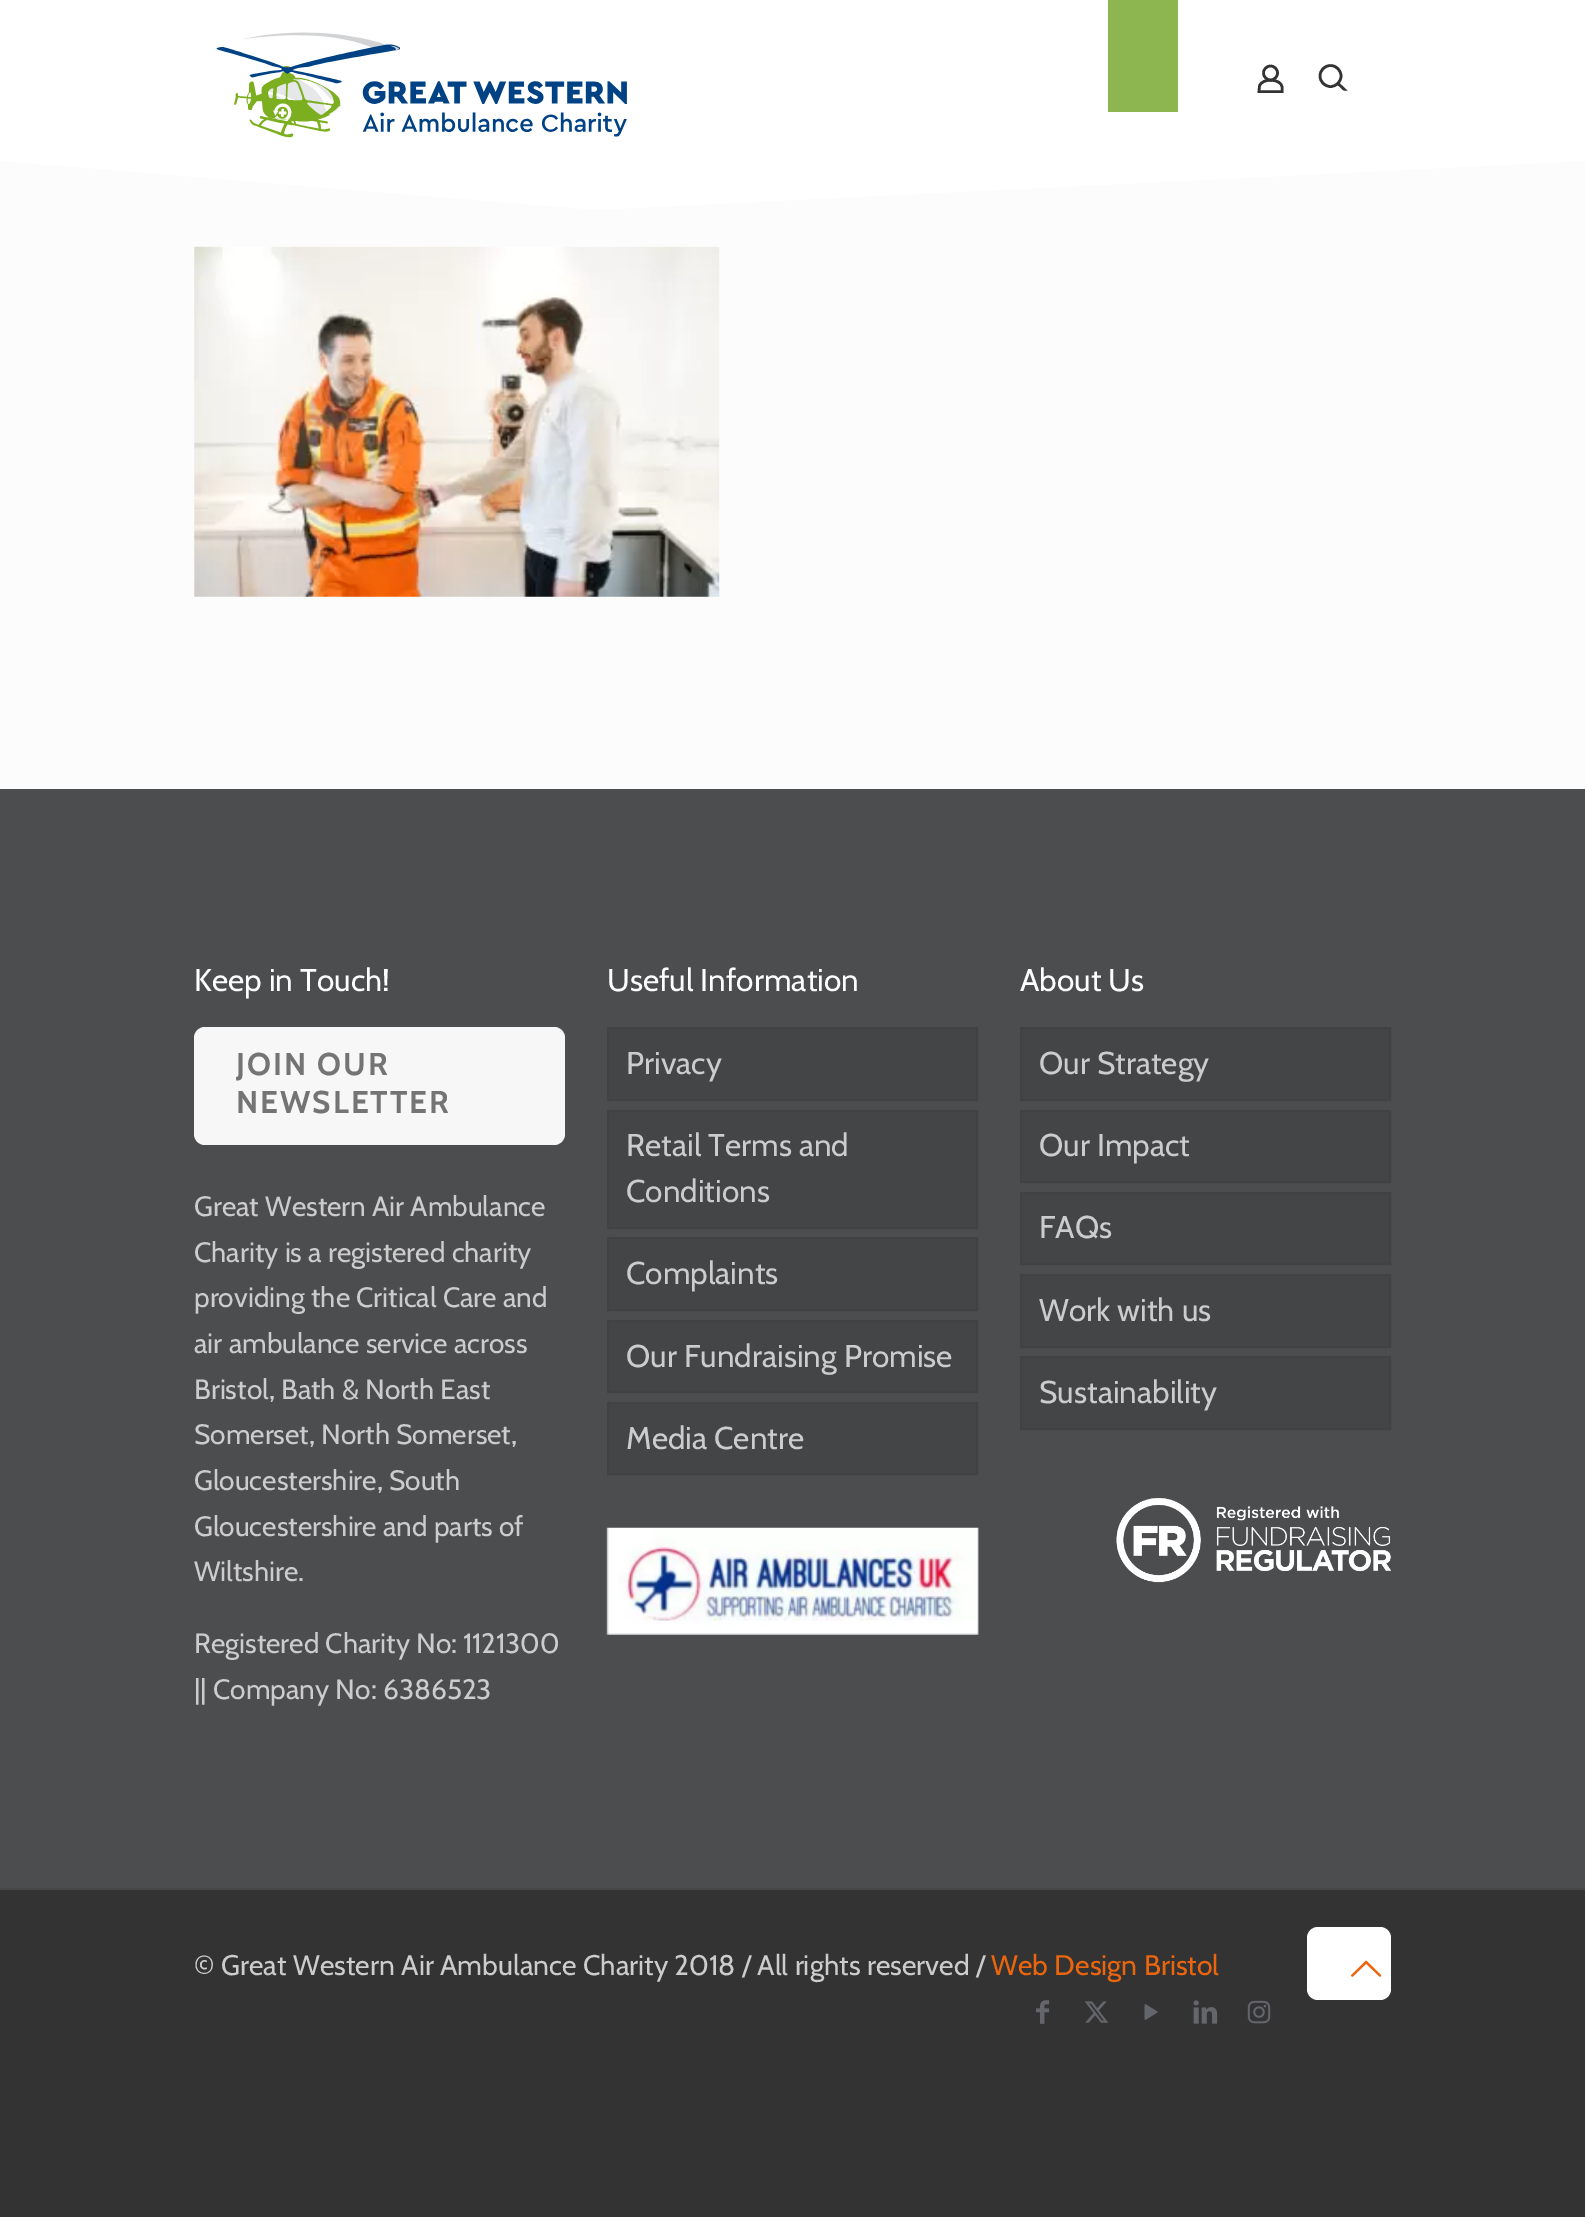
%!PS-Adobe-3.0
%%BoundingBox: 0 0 1585 2217
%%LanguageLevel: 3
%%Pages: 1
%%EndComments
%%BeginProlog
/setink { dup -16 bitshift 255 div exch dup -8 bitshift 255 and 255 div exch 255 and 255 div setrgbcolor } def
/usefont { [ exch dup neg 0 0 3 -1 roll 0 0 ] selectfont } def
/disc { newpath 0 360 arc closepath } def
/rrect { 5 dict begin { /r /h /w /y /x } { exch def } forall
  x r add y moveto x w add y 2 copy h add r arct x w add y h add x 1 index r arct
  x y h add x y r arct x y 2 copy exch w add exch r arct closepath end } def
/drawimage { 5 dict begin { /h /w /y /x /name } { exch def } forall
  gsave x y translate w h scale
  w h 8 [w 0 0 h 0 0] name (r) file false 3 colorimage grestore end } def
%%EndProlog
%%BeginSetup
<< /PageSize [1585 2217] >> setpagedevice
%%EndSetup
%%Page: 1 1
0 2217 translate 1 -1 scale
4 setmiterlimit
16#FCFCFC setink
0 0 1585 2217 rectfill
16#FFFFFF setink
0 0 1585 128 rectfill
16#333333 setink
2.6 setlinewidth
1270.5 73 7 disc stroke
1282 87.5 moveto 1282 91.5 lineto 1259 91.5 lineto 1259.5 86 lineto 1262 77.5 1282 78.5 1282 87.5 curveto closepath stroke
1330.5 76 10.5 disc stroke
1338 83.5 moveto 1347 92 lineto stroke
16#FFFFFF setink
1585 161 moveto 597 210 lineto 0 161 lineto 0 79 lineto 593 128 lineto 1585 79 lineto fill
(img1.raw) 216 32 411 106 drawimage
16#8DB651 setink
1108 0 70 112 rectfill
(img2.raw) 194 246 526 351 drawimage
16#333333 setink
0 1890 1585 327 rectfill
16#4C4D4F setink
0 789 1585 1099 rectfill
/Cabin-Regular 31.5 usefont
16#FFFFFF setink
194 991 moveto (Keep in Touch!) show
16#F7F7F7 setink
194 1027 371 118 11 rrect fill
/Cabin-Bold 31.5 usefont
16#747474 setink
236 1075 moveto 2 0 (JOIN OUR) ashow
236 1113 moveto 2 0 (NEWSLETTER) ashow
/Cabin-Regular 28 usefont
16#CCCCCC setink
[
    [(Great Western Air Ambulance) 194 1216]
    [(Charity is a registered charity) 194 1262]
    [(providing the Critical Care and) 194 1307]
    [(air ambulance service across) 194 1353]
    [(Bristol, Bath & North East) 194 1399]
    [(Somerset, North Somerset,) 194 1444]
    [(Gloucestershire, South) 194 1490]
    [(Gloucestershire and parts of) 194 1536]
    [(Wiltshire.) 194 1581]
    [(Registered Charity No: 1121300) 194 1653]
    [(|| Company No: 6386523) 194 1699]
] { aload pop moveto show } forall
/Cabin-Regular 31.5 usefont
16#FFFFFF setink
607 991 moveto (Useful Information) show
16#444547 setink
608 1028 moveto 977 1028 lineto 977 1100 lineto 608 1100 lineto closepath gsave fill grestore
16#414244 setink
2 setlinewidth
stroke
16#CCCCCC setink
626 1074 moveto (Privacy) show
16#444547 setink
608 1111 moveto 977 1111 lineto 977 1228 lineto 608 1228 lineto closepath gsave fill grestore
16#414244 setink
stroke
16#CCCCCC setink
626 1156 moveto (Retail Terms and) show
626 1202 moveto (Conditions) show
16#444547 setink
608 1238 moveto 977 1238 lineto 977 1310 lineto 608 1310 lineto closepath gsave fill grestore
16#414244 setink
stroke
16#CCCCCC setink
626 1284 moveto (Complaints) show
16#444547 setink
608 1321 moveto 977 1321 lineto 977 1392 lineto 608 1392 lineto closepath gsave fill grestore
16#414244 setink
stroke
16#CCCCCC setink
626 1367 moveto (Our Fundraising Promise) show
16#444547 setink
608 1403 moveto 977 1403 lineto 977 1474 lineto 608 1474 lineto closepath gsave fill grestore
16#414244 setink
stroke
16#CCCCCC setink
626 1449 moveto (Media Centre) show
(img3.raw) 606 1527 373 108 drawimage
16#FFFFFF setink
1020 991 moveto (About Us) show
16#444547 setink
1021 1028 moveto 1390 1028 lineto 1390 1100 lineto 1021 1100 lineto closepath gsave fill grestore
16#414244 setink
stroke
16#CCCCCC setink
1039 1074 moveto (Our Strategy) show
16#444547 setink
1021 1111 moveto 1390 1111 lineto 1390 1182 lineto 1021 1182 lineto closepath gsave fill grestore
16#414244 setink
stroke
16#CCCCCC setink
1039 1156 moveto (Our Impact) show
16#444547 setink
1021 1193 moveto 1390 1193 lineto 1390 1264 lineto 1021 1264 lineto closepath gsave fill grestore
16#414244 setink
stroke
16#CCCCCC setink
1039 1238 moveto (FAQs) show
16#444547 setink
1021 1275 moveto 1390 1275 lineto 1390 1347 lineto 1021 1347 lineto closepath gsave fill grestore
16#414244 setink
stroke
16#CCCCCC setink
1039 1321 moveto (Work with us) show
16#444547 setink
1021 1357 moveto 1390 1357 lineto 1390 1429 lineto 1021 1429 lineto closepath gsave fill grestore
16#414244 setink
stroke
16#CCCCCC setink
1039 1403 moveto (Sustainability) show
(img4.raw) 1116 1498 275 85 drawimage
16#474747 setink
0 1888 1585 2 rectfill
/Cabin-Regular 28.35 usefont
16#CCCCCC setink
194 1975 moveto (© Great Western Air Ambulance Charity 2018 / All rights reserved /) show
16#EA650D setink
991 1975 moveto (Web Design Bristol) show
16#FFFFFF setink
1307 1927 84 73 11 rrect fill
(img5.raw) 1351 1960 31 17 drawimage
(img6.raw) 1036 2000 14 24 drawimage
(img7.raw) 1084 2001 24 22 drawimage
(img8.raw) 1144 2004 14 16 drawimage
(img9.raw) 1193 2000 25 24 drawimage
(img10.raw) 1247 2000 24 24 drawimage
showpage
%%EOF
